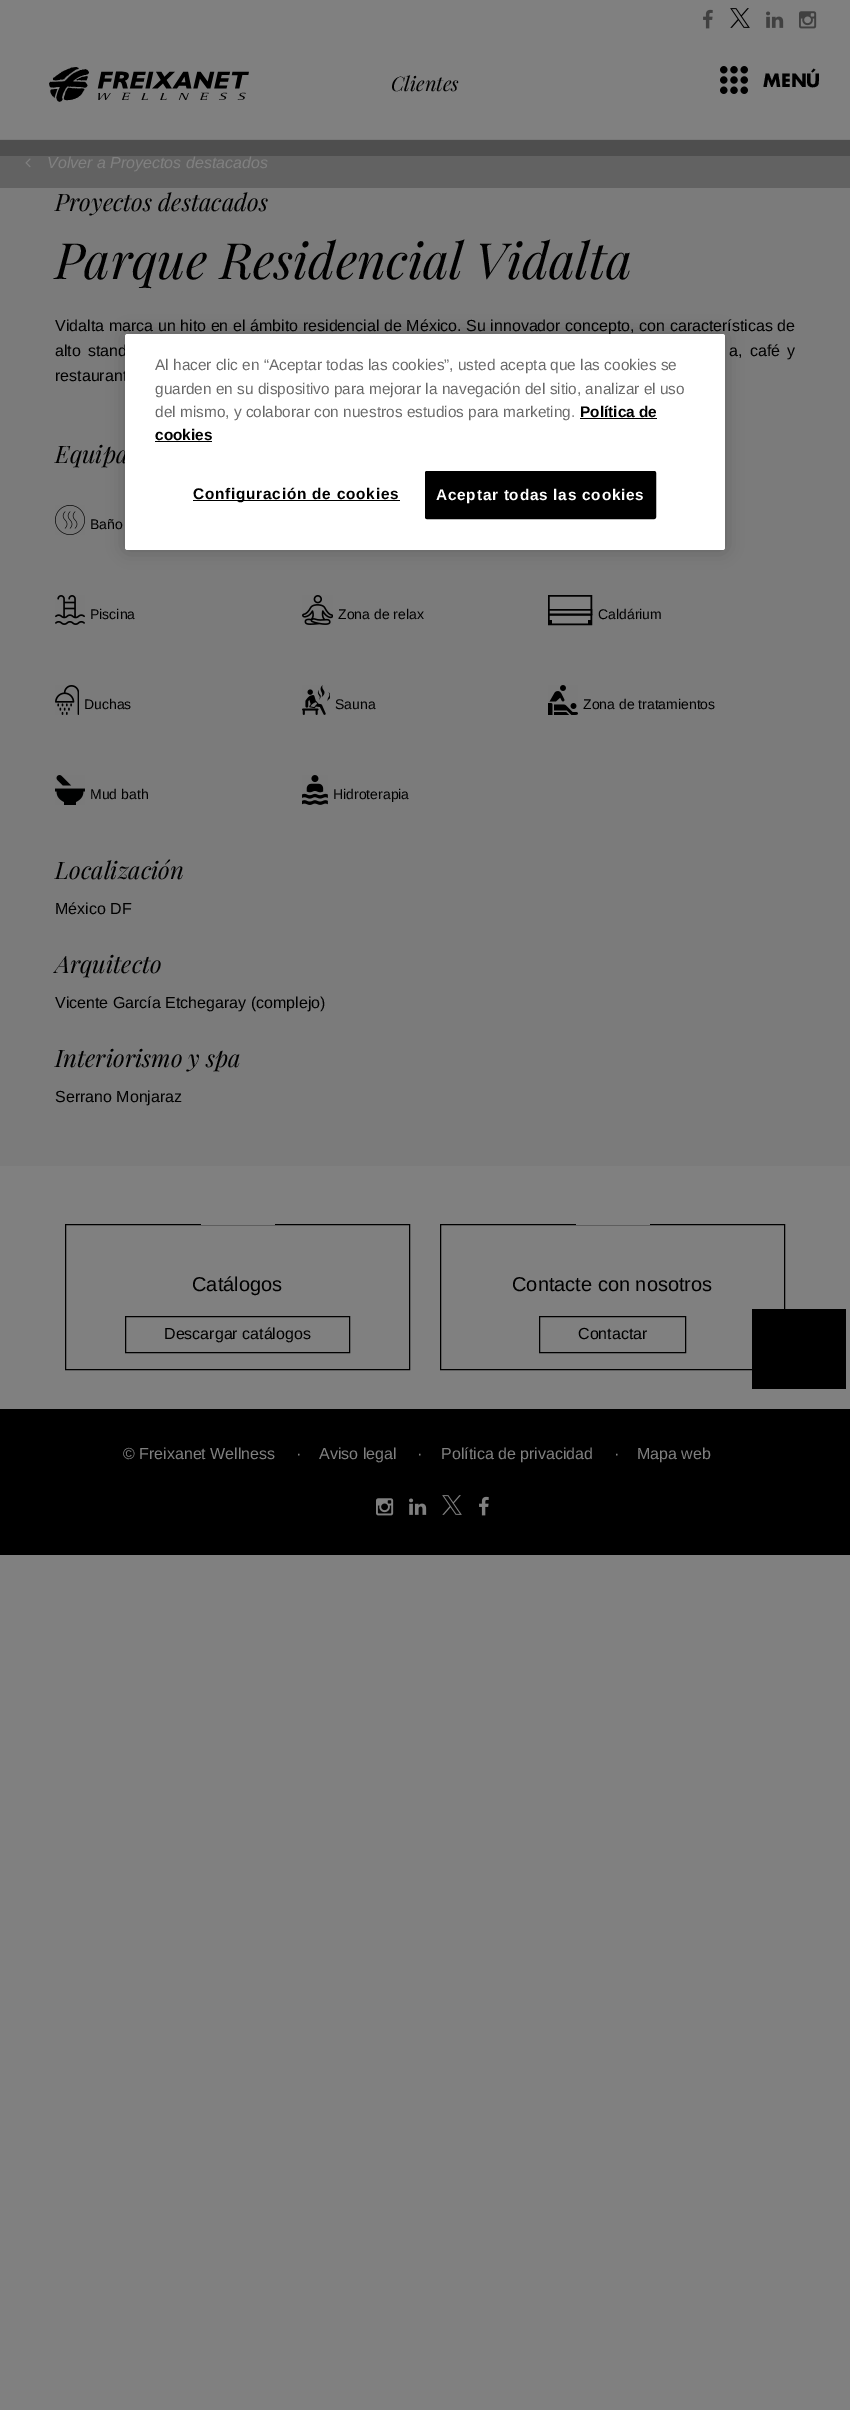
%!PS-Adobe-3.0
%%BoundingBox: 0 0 850 2410
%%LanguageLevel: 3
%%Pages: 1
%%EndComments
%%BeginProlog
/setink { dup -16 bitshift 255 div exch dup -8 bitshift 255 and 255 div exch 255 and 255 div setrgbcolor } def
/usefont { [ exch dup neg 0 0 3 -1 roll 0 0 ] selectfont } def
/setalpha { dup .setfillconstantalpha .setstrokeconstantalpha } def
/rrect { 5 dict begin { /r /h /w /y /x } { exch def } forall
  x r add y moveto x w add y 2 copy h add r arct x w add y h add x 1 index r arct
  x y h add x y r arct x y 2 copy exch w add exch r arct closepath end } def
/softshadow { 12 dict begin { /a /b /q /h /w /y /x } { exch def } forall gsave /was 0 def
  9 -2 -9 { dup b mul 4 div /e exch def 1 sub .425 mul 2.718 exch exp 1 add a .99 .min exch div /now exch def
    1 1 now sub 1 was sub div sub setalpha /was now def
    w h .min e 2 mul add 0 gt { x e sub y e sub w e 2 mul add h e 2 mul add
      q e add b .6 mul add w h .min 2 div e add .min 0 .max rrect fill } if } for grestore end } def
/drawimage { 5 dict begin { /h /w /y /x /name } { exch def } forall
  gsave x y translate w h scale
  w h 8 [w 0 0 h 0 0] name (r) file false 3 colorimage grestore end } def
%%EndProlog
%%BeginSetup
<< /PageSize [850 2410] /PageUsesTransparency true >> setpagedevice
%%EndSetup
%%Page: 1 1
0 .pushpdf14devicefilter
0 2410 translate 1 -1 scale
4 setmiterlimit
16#808080 setink
0 0 850 2410 rectfill
(img1.raw) 703 9 10 20 drawimage
(img2.raw) 730 8 20 20 drawimage
(img3.raw) 766 11 18 17 drawimage
(img4.raw) 799 11 18 18 drawimage
16#797979 setink
0 139 850 1 rectfill
(img5.raw) 49 67 200 35 drawimage
/PlayfairDisplay-Italic 20 usefont
16#000000 setink
391 91 moveto (Clientes) show
(img6.raw) 720 66 28 28 drawimage
/Futura-Bold 18 usefont
763 87 moveto (MENÚ) show
[
    [0 156 850 1010 16#7B7B7B]
    [0 140 850 16 16#626262]
] { aload pop setink rectfill } forall
0.2 setalpha
[
    [0 140 850 48 16#000000]
] { aload pop setink rectfill } forall
1 setalpha
(img7.raw) 25 158 6 10 drawimage
/LiberationSans-Italic 16 usefont
16#808080 setink
47 168 moveto (Volver a Proyectos destacados) show
/PlayfairDisplay-Italic 24 usefont
16#000000 setink
55 211 moveto (Proyectos destacados) show
/PlayfairDisplay-Italic 50 usefont
55 279 moveto (Parque Residencial Vidalta) show
/LiberationSans-Regular 16 usefont
55 331 moveto 0.2 0 32 (Vidalta marca un hito en el ámbito residencial de México. Su innovador concepto, con características de) widthshow
55 356 moveto (alto) show
88 356 moveto (stand) show
729 356 moveto 3 0 32 (a, café y) widthshow
55 381 moveto (restaurant) show
/PlayfairDisplay-Italic 24 usefont
55 463 moveto (Equipa) show
(img8.raw) 55 505 30 30 drawimage
/LiberationSans-Regular 14 usefont
90 529 moveto (Baño) show
(img9.raw) 55 595 30 30 drawimage
90 619 moveto (Piscina) show
(img10.raw) 302 595 31 30 drawimage
338 619 moveto (Zona de relax) show
16#808080 setink
549 596 42 13 rectfill
16#000000 setink
1.5 setlinewidth
548.75 595.75 42.5 18.5 rectstroke
16#808080 setink
548.75 614.75 moveto 591.25 614.75 lineto 591.25 624.25 lineto 548.75 624.25 lineto closepath gsave fill grestore
16#000000 setink
stroke
16#808080 setink
548.75 609.75 moveto 591.25 609.75 lineto 591.25 614.25 lineto 548.75 614.25 lineto closepath gsave fill grestore
16#000000 setink
stroke
549 620 3 4 rectfill
588 620 4 4 rectfill
598 619 moveto (Caldárium) show
(img11.raw) 55 685 24 30 drawimage
84 709 moveto (Duchas) show
(img12.raw) 302 685 28 30 drawimage
335 709 moveto (Sauna) show
(img13.raw) 548 685 30 30 drawimage
583 709 moveto (Zona de tratamientos) show
(img14.raw) 55 775 30 30 drawimage
90 799 moveto (Mud bath) show
(img15.raw) 302 775 26 30 drawimage
333 799 moveto (Hidroterapia) show
/PlayfairDisplay-Italic 24 usefont
55 879 moveto (Localización) show
/LiberationSans-Regular 16 usefont
55 914 moveto (México DF) show
/PlayfairDisplay-Italic 24 usefont
55 973 moveto (Arquitecto) show
/LiberationSans-Regular 16 usefont
55 1008 moveto (Vicente García Etchegaray \(complejo\)) show
/PlayfairDisplay-Italic 24 usefont
55 1067 moveto (Interiorismo y spa) show
/LiberationSans-Regular 16 usefont
55 1102 moveto (Serrano Monjaraz) show
125 334 600 216 2.5 9 0.2 softshadow
16#FFFFFF setink
125 334 600 216 2.5 rrect fill
/LiberationSans-Regular 15.4 usefont
16#696969 setink
[
    [(Al hacer clic en “Aceptar todas las cookies”, usted acepta que las cookies se) 155 370]
    [(guarden en su dispositivo para mejorar la navegación del sitio, analizar el uso) 155 394]
    [(del mismo, y colaborar con nuestros estudios para marketing.) 155 417]
] { aload pop moveto show } forall
/LiberationSans-Bold 15.4 usefont
16#000000 setink
580 417 moveto (Política de) show
580 418 77 1 rectfill
155 440 moveto (cookies) show
155 441 57 1 rectfill
193 500 207 1 rectfill
193 499 moveto 0.75 0 (Configuración de cookies) ashow
425.5 471.5 230 47 1.5 rrect gsave fill grestore
1 setlinewidth
stroke
16#FFFFFF setink
436 500 moveto 0.75 0 (Aceptar todas las cookies) ashow
16#000000 setink
65.5 1224.5 344 145 rectstroke
16#808080 setink
201 1224 74 1 rectfill
/LiberationSans-Regular 20 usefont
16#000000 setink
192 1291 moveto (Catálogos) show
125.5 1316.5 224 36 rectstroke
/LiberationSans-Regular 16 usefont
164 1339 moveto (Descargar catálogos) show
440.5 1224.5 344 145 rectstroke
16#808080 setink
576 1224 74 1 rectfill
/LiberationSans-Regular 20 usefont
16#000000 setink
512 1291 moveto (Contacte con nosotros) show
539.5 1316.5 146 36 rectstroke
/LiberationSans-Regular 16 usefont
578 1339 moveto (Contactar) show
0 1409 850 146 rectfill
752 1309 94 80 rectfill
16#808080 setink
[
    [(© Freixanet Wellness) 123 1459]
    [(·) 296 1459]
    [(Aviso legal) 319 1459]
    [(·) 417 1459]
    [(Política de privacidad) 441 1459]
    [(·) 614 1459]
    [(Mapa web) 637 1459]
] { aload pop moveto show } forall
(img16.raw) 376 1498 18 18 drawimage
(img17.raw) 409 1498 18 17 drawimage
(img18.raw) 442 1495 20 20 drawimage
(img19.raw) 479 1496 10 20 drawimage
.poppdf14devicefilter showpage
%%EOF
